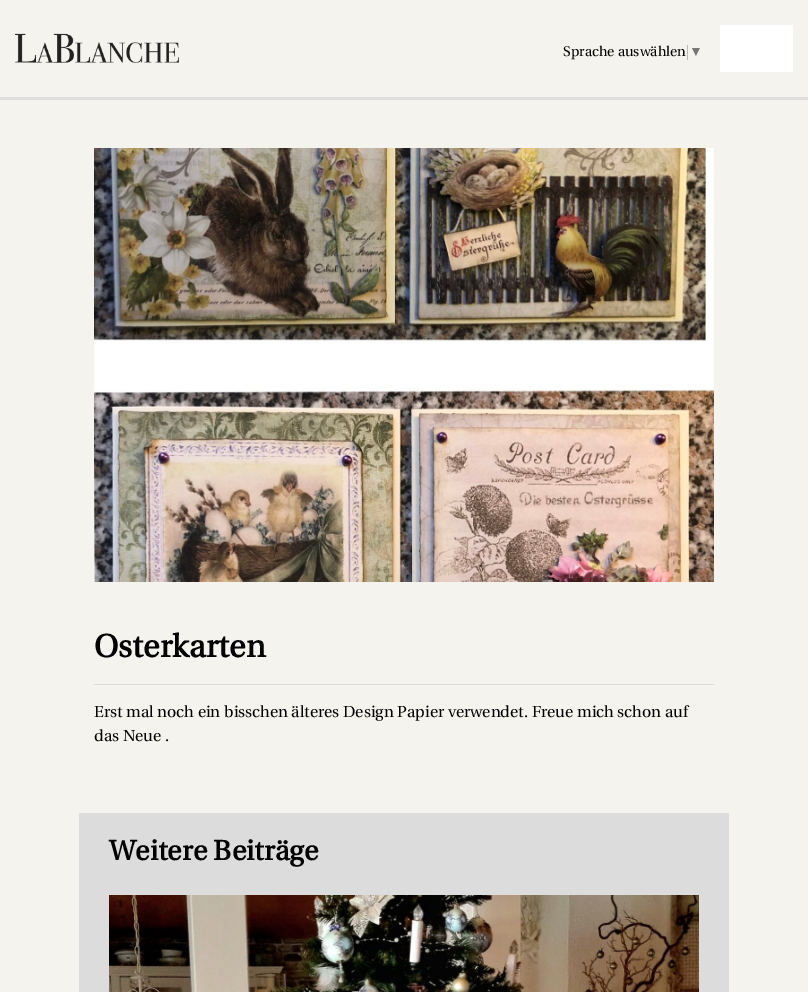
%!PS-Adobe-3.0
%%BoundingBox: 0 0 808 992
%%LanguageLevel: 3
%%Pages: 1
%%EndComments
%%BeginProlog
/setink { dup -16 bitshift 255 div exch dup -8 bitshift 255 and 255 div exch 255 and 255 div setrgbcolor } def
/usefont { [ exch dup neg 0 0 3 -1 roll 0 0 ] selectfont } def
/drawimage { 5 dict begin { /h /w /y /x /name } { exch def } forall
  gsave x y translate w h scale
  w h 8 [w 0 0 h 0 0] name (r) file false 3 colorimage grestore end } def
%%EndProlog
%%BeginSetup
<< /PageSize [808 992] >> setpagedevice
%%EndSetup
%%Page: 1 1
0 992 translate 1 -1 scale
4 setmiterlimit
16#F4F3EE setink
0 0 808 992 rectfill
16#DCDCDC setink
0 97 808 3 rectfill
(img1.raw) 15 33 164 30 drawimage
/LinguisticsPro-Regular 14 usefont
16#000000 setink
563 56 moveto (Sprache auswählen) show
16#BBBBBB setink
687 45 1 15 rectfill
/LiberationSerif-Regular 14 usefont
16#767676 setink
689 56 moveto (▼) show
16#FFFFFF setink
720 25 73 47 rectfill
(img2.raw) 94 148 620 434 drawimage
/LinguisticsPro-Bold 32 usefont
16#000000 setink
94 657 moveto (Osterkarten) show
16#DCDBD6 setink
94 684 620 1 rectfill
/LinguisticsPro-Regular 16 usefont
16#000000 setink
94 717 moveto (Erst mal noch ein bisschen älteres Design Papier verwendet. Freue mich schon auf) show
94 741 moveto (das Neue .) show
16#DCDCDC setink
79 813 650 179 rectfill
/LinguisticsPro-Bold 28 usefont
16#000000 setink
109 860 moveto (Weitere Beiträge) show
(img3.raw) 109 895 590 97 drawimage
showpage
%%EOF
